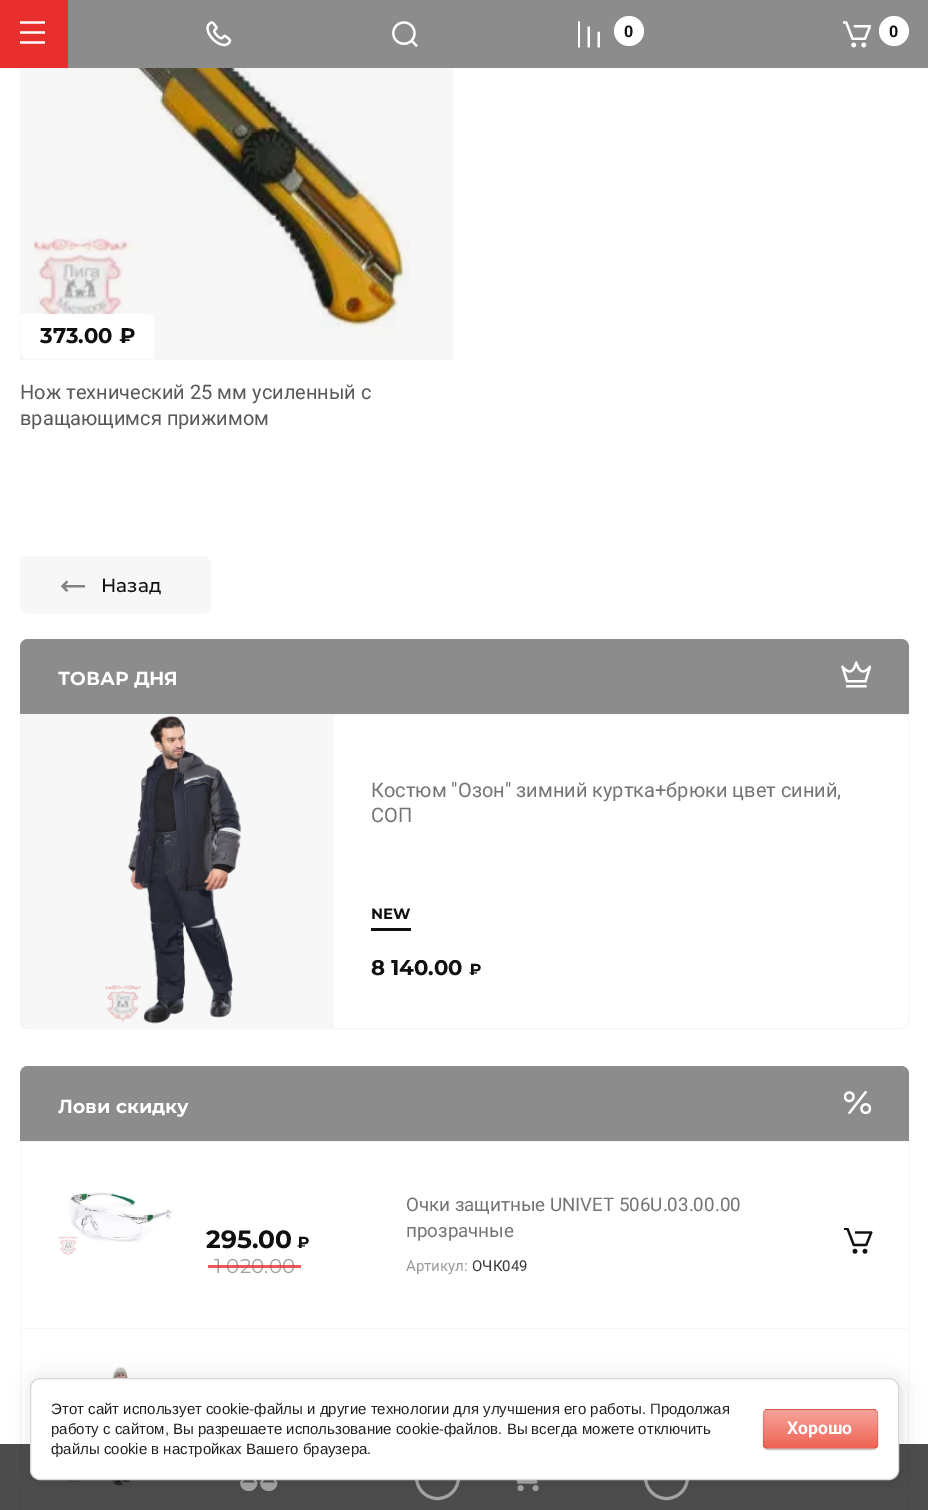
%!PS-Adobe-3.0
%%BoundingBox: 0 0 928 1510
%%LanguageLevel: 3
%%Pages: 1
%%EndComments
%%BeginProlog
/setink { dup -16 bitshift 255 div exch dup -8 bitshift 255 and 255 div exch 255 and 255 div setrgbcolor } def
/usefont { [ exch dup neg 0 0 3 -1 roll 0 0 ] selectfont } def
/setalpha { dup .setfillconstantalpha .setstrokeconstantalpha } def
/disc { newpath 0 360 arc closepath } def
/rrect { 5 dict begin { /r /h /w /y /x } { exch def } forall
  x r add y moveto x w add y 2 copy h add r arct x w add y h add x 1 index r arct
  x y h add x y r arct x y 2 copy exch w add exch r arct closepath end } def
/softshadow { 12 dict begin { /a /b /q /h /w /y /x } { exch def } forall gsave /was 0 def
  9 -2 -9 { dup b mul 4 div /e exch def 1 sub .425 mul 2.718 exch exp 1 add a .99 .min exch div /now exch def
    1 1 now sub 1 was sub div sub setalpha /was now def
    w h .min e 2 mul add 0 gt { x e sub y e sub w e 2 mul add h e 2 mul add
      q e add b .6 mul add w h .min 2 div e add .min 0 .max rrect fill } if } for grestore end } def
/drawimage { 5 dict begin { /h /w /y /x /name } { exch def } forall
  gsave x y translate w h scale
  w h 8 [w 0 0 h 0 0] name (r) file false 3 colorimage grestore end } def
%%EndProlog
%%BeginSetup
<< /PageSize [928 1510] /PageUsesTransparency true >> setpagedevice
%%EndSetup
%%Page: 1 1
0 .pushpdf14devicefilter
0 1510 translate 1 -1 scale
4 setmiterlimit
16#FFFFFF setink
0 0 928 1510 rectfill
16#8C8C8C setink
68 0 860 68 rectfill
16#E92E2E setink
0 0 68 68 rectfill
(img1.raw) 20 21 25 23 drawimage
(img2.raw) 206 21 26 26 drawimage
(img3.raw) 392 21 26 26 drawimage
(img4.raw) 578 21 22 27 drawimage
16#FFFFFF setink
629 31 15 disc fill
/Roboto-Bold 16 usefont
16#101010 setink
624 37 moveto (0) show
(img5.raw) 843 21 28 27 drawimage
16#FFFFFF setink
894 31 15 disc fill
16#101010 setink
889 37 moveto (0) show
(img6.raw) 33 68 377 273 drawimage
0.03 setalpha
16#000000 setink
20 68 433 292 rectfill
1 setalpha
16#FFFFFF setink
21 314 moveto 146 314 lineto 150.5 314 154 317.5 154 322 curveto 154 359 lineto 29 359 lineto 24.5 359 21 355.5 21 351 curveto closepath fill
/Montserrat-Bold 21.25 usefont
16#101010 setink
40 343 moveto (373.00 ₽) show
/Roboto-Regular 20 usefont
16#585858 setink
20 399 moveto (Нож технический 25 мм усиленный с) show
20 425 moveto (вращающимся прижимом) show
16#F7F7F7 setink
20 556 191 58 8 rrect fill
(img7.raw) 60 580 25 12 drawimage
/Montserrat-Medium 18.75 usefont
16#101010 setink
101 592 moveto (Назад) show
16#F6F6F6 setink
20.5 1141.5 888 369 rectstroke
(img15.raw) 60 1367 76 119 drawimage
0.7 setalpha
16#000000 setink
0 1444 928 66 rectfill
1 setalpha
(img8.raw) 240 1480 38 11 drawimage
16#A6A6A6 setink
3 setlinewidth
437.5 1477.5 21 disc stroke
(img9.raw) 516 1480 23 11 drawimage
666.5 1477.5 21 disc stroke
16#8C8C8C setink
28 639 moveto 901 639 lineto 905.5 639 909 642.5 909 647 curveto 909 714 lineto 20 714 lineto 20 647 lineto 20 642.5 23.5 639 28 639 curveto closepath fill
/Montserrat-Bold 18.75 usefont
16#FFFFFF setink
58 685 moveto (ТОВАР ДНЯ) show
(img10.raw) 841 661 30 27 drawimage
16#F6F6F6 setink
1 setlinewidth
20.5 714.5 moveto 908.5 714.5 lineto 908.5 1021 lineto 908.5 1025 905 1028.5 901 1028.5 curveto 28 1028.5 lineto 24 1028.5 20.5 1025 20.5 1021 curveto closepath stroke
(img11.raw) 105 715 136 309 drawimage
0.03 setalpha
16#000000 setink
21 715 313 313 rectfill
/Roboto-Regular 20 usefont
1 setalpha
16#747474 setink
371 797 moveto (Костюм "Озон" зимний куртка+брюки цвет синий,) show
371 822 moveto (СОП) show
16#101010 setink
371 928 40 3 rectfill
/Montserrat-Bold 15 usefont
371 919 moveto (NEW) show
/Montserrat-Bold 21.25 usefont
371 975 moveto (8 140.00) show
/Montserrat-Bold 16 usefont
469 975 moveto (₽) show
16#8C8C8C setink
28 1066 moveto 901 1066 lineto 905.5 1066 909 1069.5 909 1074 curveto 909 1141 lineto 20 1141 lineto 20 1074 lineto 20 1069.5 23.5 1066 28 1066 curveto closepath fill
/Montserrat-Bold 18.75 usefont
16#FFFFFF setink
58 1113 moveto (Лови скидку) show
(img12.raw) 844 1091 27 23 drawimage
16#F6F6F6 setink
21 1328 887 1 rectfill
(img13.raw) 58 1192 114 64 drawimage
/Montserrat-Bold 25 usefont
16#101010 setink
206 1248 moveto (295.00) show
/Montserrat-Bold 16 usefont
297 1248 moveto (₽) show
/Montserrat-Regular 20 usefont
16#9F9F9F setink
214 1273 moveto (1 020.00) show
0.8 setalpha
16#E92E2E setink
208 1265 93 3 rectfill
/Roboto-Regular 18.75 usefont
1 setalpha
16#747474 setink
406 1211 moveto (Очки защитные UNIVET 506U.03.00.00) show
406 1237 moveto (прозрачные) show
/Roboto-Regular 15 usefont
16#999999 setink
406 1271 moveto (Артикул:) show
16#393939 setink
472 1271 moveto (ОЧК049) show
(img14.raw) 844 1228 29 26 drawimage
16#000000 setink
33 1380 868 103 10 11 0.14 softshadow
16#FFFFFF setink
30.5 1378.5 868 101 9.5 rrect gsave fill grestore
16#D6D6D6 setink
stroke
/LiberationSans-Regular 15 usefont
16#212121 setink
[
    [(Этот сайт использует cookie-файлы и другие технологии для улучшения его работы. Продолжая) 51 1414]
    [(работу с сайтом, Вы разрешаете использование cookie-файлов. Вы всегда можете отключить) 51 1434]
    [(файлы cookie в настройках Вашего браузера.) 51 1454]
] { aload pop moveto show } forall
16#000000 setink
763 1410 115 40 5 0.5 0.2 softshadow
gsave
763 1409 115 40 5 rrect clip newpath
gsave 763 1409 moveto 878 1409 lineto 878 1410 lineto 763 1410 lineto closepath clip newpath
<< /ShadingType 2 /ColorSpace /DeviceRGB /Coords [820 1373 820 1410] /Extend [true true] /Function << /FunctionType 2 /Domain [0 1] /C0 [0.965 0.639 0.604] /C1 [0.941 0.388 0.329] /N 1 >> >> shfill grestore
gsave 763 1410 moveto 878 1410 lineto 878 1448 lineto 763 1448 lineto closepath clip newpath
<< /ShadingType 2 /ColorSpace /DeviceRGB /Coords [820 1410 820 1448] /Extend [true true] /Function << /FunctionType 2 /Domain [0 1] /C0 [0.965 0.639 0.604] /C1 [0.941 0.388 0.329] /N 1 >> >> shfill grestore
gsave 763 1448 moveto 878 1448 lineto 878 1449 lineto 763 1449 lineto closepath clip newpath
<< /ShadingType 2 /ColorSpace /DeviceRGB /Coords [820 1448 820 1485] /Extend [true true] /Function << /FunctionType 2 /Domain [0 1] /C0 [0.965 0.639 0.604] /C1 [0.941 0.388 0.329] /N 1 >> >> shfill grestore
grestore
0.1 setalpha
763.5 1409.5 114 39 4.5 rrect stroke
/Roboto-Bold 17.5 usefont
1 setalpha
16#FFFFFF setink
787 1434 moveto (Хорошо) show
.poppdf14devicefilter showpage
%%EOF
